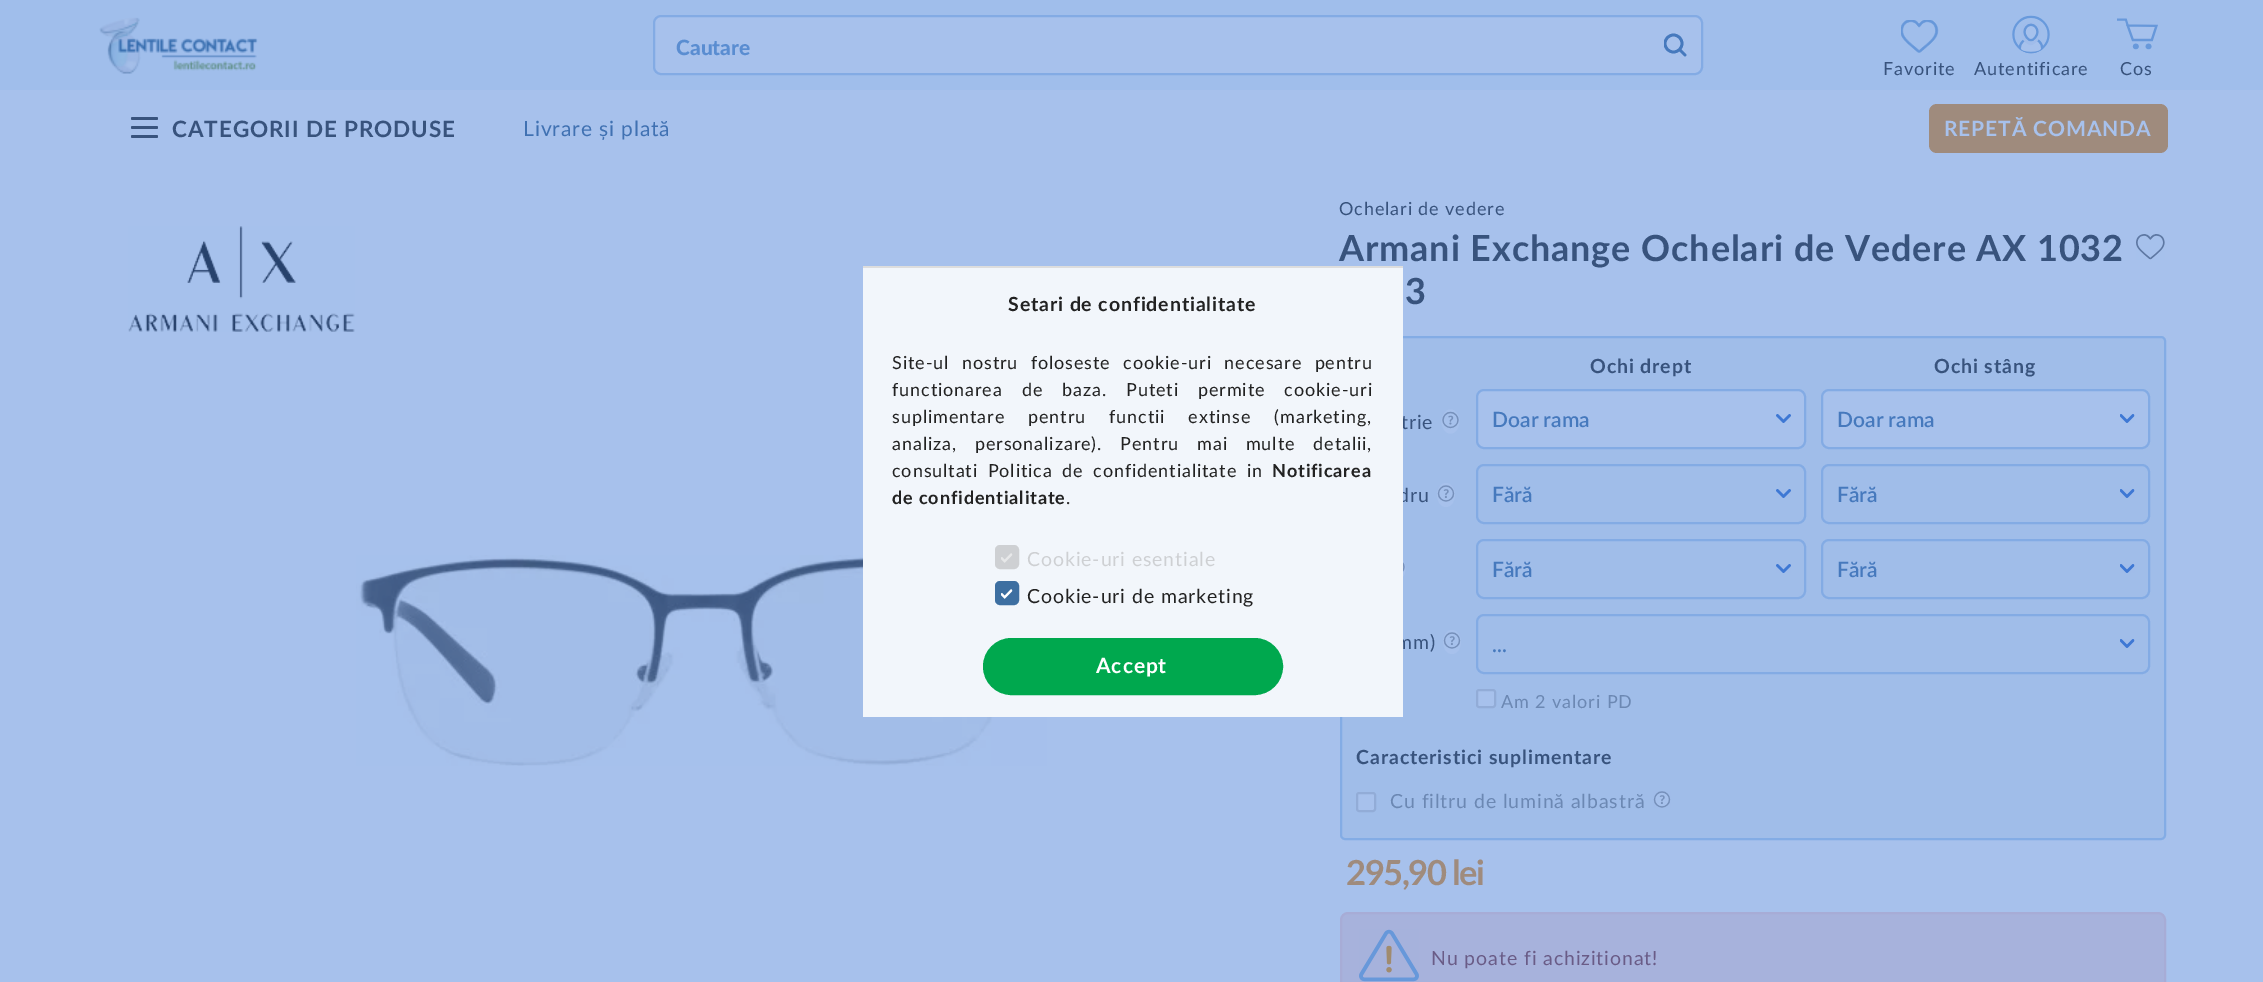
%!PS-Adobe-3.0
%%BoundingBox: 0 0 2263 982
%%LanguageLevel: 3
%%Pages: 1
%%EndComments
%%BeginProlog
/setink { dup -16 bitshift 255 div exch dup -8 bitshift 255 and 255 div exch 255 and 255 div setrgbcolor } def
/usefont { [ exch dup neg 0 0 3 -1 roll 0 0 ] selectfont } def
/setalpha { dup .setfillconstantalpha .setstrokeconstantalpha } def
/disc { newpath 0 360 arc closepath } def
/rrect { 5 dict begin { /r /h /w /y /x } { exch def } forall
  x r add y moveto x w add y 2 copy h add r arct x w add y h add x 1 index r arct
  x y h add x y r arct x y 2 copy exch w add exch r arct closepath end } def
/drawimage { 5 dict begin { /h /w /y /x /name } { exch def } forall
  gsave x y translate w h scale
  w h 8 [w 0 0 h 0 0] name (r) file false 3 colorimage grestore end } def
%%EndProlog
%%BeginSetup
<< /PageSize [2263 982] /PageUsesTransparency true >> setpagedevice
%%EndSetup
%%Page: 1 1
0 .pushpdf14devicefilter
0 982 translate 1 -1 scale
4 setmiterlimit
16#A7C1EC setink
0 0 2263 982 rectfill
16#A0BEEB setink
0 0 2263 90 rectfill
(img1.raw) 99 17 159 57 drawimage
16#A7C1EC setink
654 16 1048 58 7 rrect gsave fill grestore
16#83ABE4 setink
2 setlinewidth
stroke
/Lato-Black 21 usefont
16#5A8DD1 setink
676 55 moveto (Cautare) show
16#4679BD setink
2.8 setlinewidth
1 setlinecap
1 setlinejoin
1679.5 49.5 moveto 1685 55 lineto stroke
16#A7C1EC setink
1673.5 43.5 8.5 disc fill
gsave
1664 33 24 24 rectclip
16#4679BD setink
0 setlinecap
0 setlinejoin
1673.5 43.5 8.5 disc stroke
grestore
(img2.raw) 1901 20 38 33 drawimage
/Lato-Regular 18 usefont
16#38537D setink
1883 75 moveto 0.9 0 (Favorite) ashow
(img3.raw) 2012 15 38 39 drawimage
1974 75 moveto 0.9 0 (Autentificare) ashow
(img4.raw) 2117 18 41 32 drawimage
2120 75 moveto 0.9 0 (Cos) ashow
131 117 27 3 1.5 rrect fill
131 126 27 3 1.5 rrect fill
131 135 27 3 1.5 rrect fill
/Lato-Bold 22.5 usefont
172 137 moveto 0.9 0 (CATEGORII DE PRODUSE) ashow
/Lato-Regular 21 usefont
16#4071B2 setink
523 136 moveto 0.9 0 (Livrare și plată) ashow
16#9F8B7D setink
1929 104 239 49 8 rrect fill
/Lato-Bold 21 usefont
16#A7C1EC setink
1944 136 moveto 0.9 0 (REPETĂ COMANDA) ashow
(img5.raw) 128 226 227 106 drawimage
(img6.raw) 356 555 691 211 drawimage
/Lato-Regular 18 usefont
16#38537D setink
1339 215 moveto 0.9 0 (Ochelari de vedere) ashow
/Lato-Bold 36 usefont
1339 261 moveto 0.9 0 (Armani Exchange Ochelari de Vedere AX 1032) ashow
1405 304 moveto 0.9 0 (3) ashow
(img7.raw) 2136 234 29 26 drawimage
16#A0BDE9 setink
1341 337 824 502 4 rrect gsave fill grestore
16#83ACE5 setink
2 setlinewidth
0 setlinecap
0 setlinejoin
stroke
/Lato-Regular 19.5 usefont
16#38537D setink
1401 429 moveto 0.9 0 (trie) ashow
16#A7C1EC setink
1450.5 409.5 moveto 1455.5 409.5 1459.5 415 1459.5 421.5 curveto 1459.5 428 1455.5 433.5 1450.5 433.5 curveto 1445.5 433.5 1441.5 428 1441.5 421.5 curveto 1441.5 415 1445.5 409.5 1450.5 409.5 curveto closepath fill
(img8.raw) 1442 411 17 18 drawimage
16#38537D setink
1398 502 moveto 0.9 0 (dru) ashow
16#A7C1EC setink
1446 483 moveto 1451 483 1455 488.5 1455 495 curveto 1455 501.5 1451 507 1446 507 curveto 1441 507 1437 501.5 1437 495 curveto 1437 488.5 1441 483 1446 483 curveto closepath fill
(img9.raw) 1437 485 18 17 drawimage
1396.5 556.5 moveto 1401.5 556.5 1405.5 562 1405.5 568.5 curveto 1405.5 575 1401.5 580.5 1396.5 580.5 curveto 1391.5 580.5 1387.5 575 1387.5 568.5 curveto 1387.5 562 1391.5 556.5 1396.5 556.5 curveto closepath fill
(img10.raw) 1403 562 2 10 drawimage
/Lato-Bold 19.5 usefont
16#38537D setink
1590 373 moveto 0.9 0 (Ochi drept) ashow
16#A7C1EC setink
1477 390 328 58 7 rrect gsave fill grestore
16#83ABE4 setink
stroke
/Lato-SemiBold 21 usefont
16#4679BD setink
1492 427 moveto (Doar rama) show
(img11.raw) 1776 414 15 9 drawimage
16#83ABE4 setink
1477 465 328 58 7 rrect stroke
16#4679BD setink
1492 502 moveto (Fără) show
(img12.raw) 1776 489 15 9 drawimage
16#83ABE4 setink
1477 540 328 58 7 rrect stroke
16#4679BD setink
1492 577 moveto (Fără) show
(img12.raw) 1776 564 15 9 drawimage
/Lato-Bold 19.5 usefont
16#38537D setink
1934 373 moveto 0.9 0 (Ochi stâng) ashow
16#A7C1EC setink
1822 390 327 58 7 rrect gsave fill grestore
16#83ABE4 setink
stroke
/Lato-SemiBold 21 usefont
16#4679BD setink
1837 427 moveto (Doar rama) show
(img13.raw) 2120 414 15 9 drawimage
16#83ABE4 setink
1822 465 327 58 7 rrect stroke
16#4679BD setink
1837 502 moveto (Fără) show
(img14.raw) 2120 489 15 9 drawimage
16#83ABE4 setink
1822 540 327 58 7 rrect stroke
16#4679BD setink
1837 577 moveto (Fără) show
(img14.raw) 2120 564 15 9 drawimage
/Lato-Regular 19.5 usefont
16#38537D setink
1396 649 moveto 0.9 0 (mm\)) ashow
16#A7C1EC setink
1452 630 moveto 1457 630 1461 635.5 1461 642 curveto 1461 648.5 1457 654 1452 654 curveto 1447 654 1443 648.5 1443 642 curveto 1443 635.5 1447 630 1452 630 curveto closepath fill
(img9.raw) 1443 632 18 17 drawimage
16#83ABE4 setink
1477 615 672 58 7 rrect stroke
(img14.raw) 2120 639 15 9 drawimage
/Lato-SemiBold 21 usefont
16#4679BD setink
1492 652 moveto (...) show
16#A7C1EC setink
1476 689 20 19 3 rrect fill
0.3 setalpha
16#627DA7 setink
1477 690 18 17 2 rrect stroke
/Lato-Regular 18 usefont
1 setalpha
16#6C88B3 setink
1501 708 moveto 0.9 0 (Am 2 valori PD) ashow
/Lato-Bold 19.5 usefont
16#38537D setink
1356 764 moveto 0.9 0 (Caracteristici suplimentare) ashow
16#A7C1EC setink
1356 792 20 20 3 rrect fill
0.3 setalpha
16#627DA7 setink
1357 793 18 18 2 rrect stroke
/Lato-Regular 19.5 usefont
1 setalpha
16#6C88B3 setink
1390 808 moveto 0.9 0 (Cu filtru de lumină albastră) ashow
(img15.raw) 1653 791 18 17 drawimage
/Lato-Bold 34.5 usefont
16#9F8B7D setink
1346 885 moveto -1.5 0 (295,90 lei) ashow
16#A7B2DC setink
1341 913 824 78 7 rrect gsave fill grestore
16#A7ACD6 setink
stroke
(img16.raw) 1359 929 60 53 drawimage
/Lato-Regular 19.5 usefont
16#6A5C87 setink
1431 965 moveto 0.9 0 (Nu poate fi achizitionat!) ashow
16#F2F6FB setink
863 268 540 449 rectfill
16#DDDDDD setink
863 266 540 2 rectfill
/Lato-Bold 19.5 usefont
16#222222 setink
1008 311 moveto 0.9 0 (Setari de confidentialitate) ashow
/Lato-Regular 18 usefont
892 369 moveto 7 0 32 0.9 0 (Site-ul nostru foloseste cookie-uri necesare pentru) awidthshow
892 396 moveto 13.5 0 32 0.9 0 (functionarea de baza. Puteti permite cookie-uri) awidthshow
892 423 moveto 17.5 0 32 0.9 0 (suplimentare pentru functii extinse \(marketing,) awidthshow
892 450 moveto 12.5 0 32 0.9 0 (analiza, personalizare\). Pentru mai multe detalii,) awidthshow
892 477 moveto 4 0 32 0.9 0 (consultati Politica de confidentialitate in) awidthshow
/Lato-Bold 18 usefont
1272 477 moveto 0.9 0 (Notificarea) ashow
892 504 moveto 0.9 0 (de confidentialitate) ashow
/Lato-Regular 18 usefont
1066 504 moveto 0.9 0 (.) ashow
16#CED0D3 setink
996 546 22 22 4 rrect gsave fill grestore
stroke
(img17.raw) 1001 553 12 10 drawimage
/Lato-Regular 19.5 usefont
1027 566 moveto 0.9 0 (Cookie-uri esentiale) ashow
16#3D6FA1 setink
996 582 22 22 4 rrect gsave fill grestore
stroke
(img18.raw) 1001 589 12 10 drawimage
16#222222 setink
1027 603 moveto 0.9 0 (Cookie-uri de marketing) ashow
16#00A84E setink
984 639 298 55 27.5 rrect gsave fill grestore
stroke
/Lato-Bold 21 usefont
16#FFFFFF setink
1096 673 moveto 0.9 0 (Accept) ashow
.poppdf14devicefilter showpage
%%EOF
